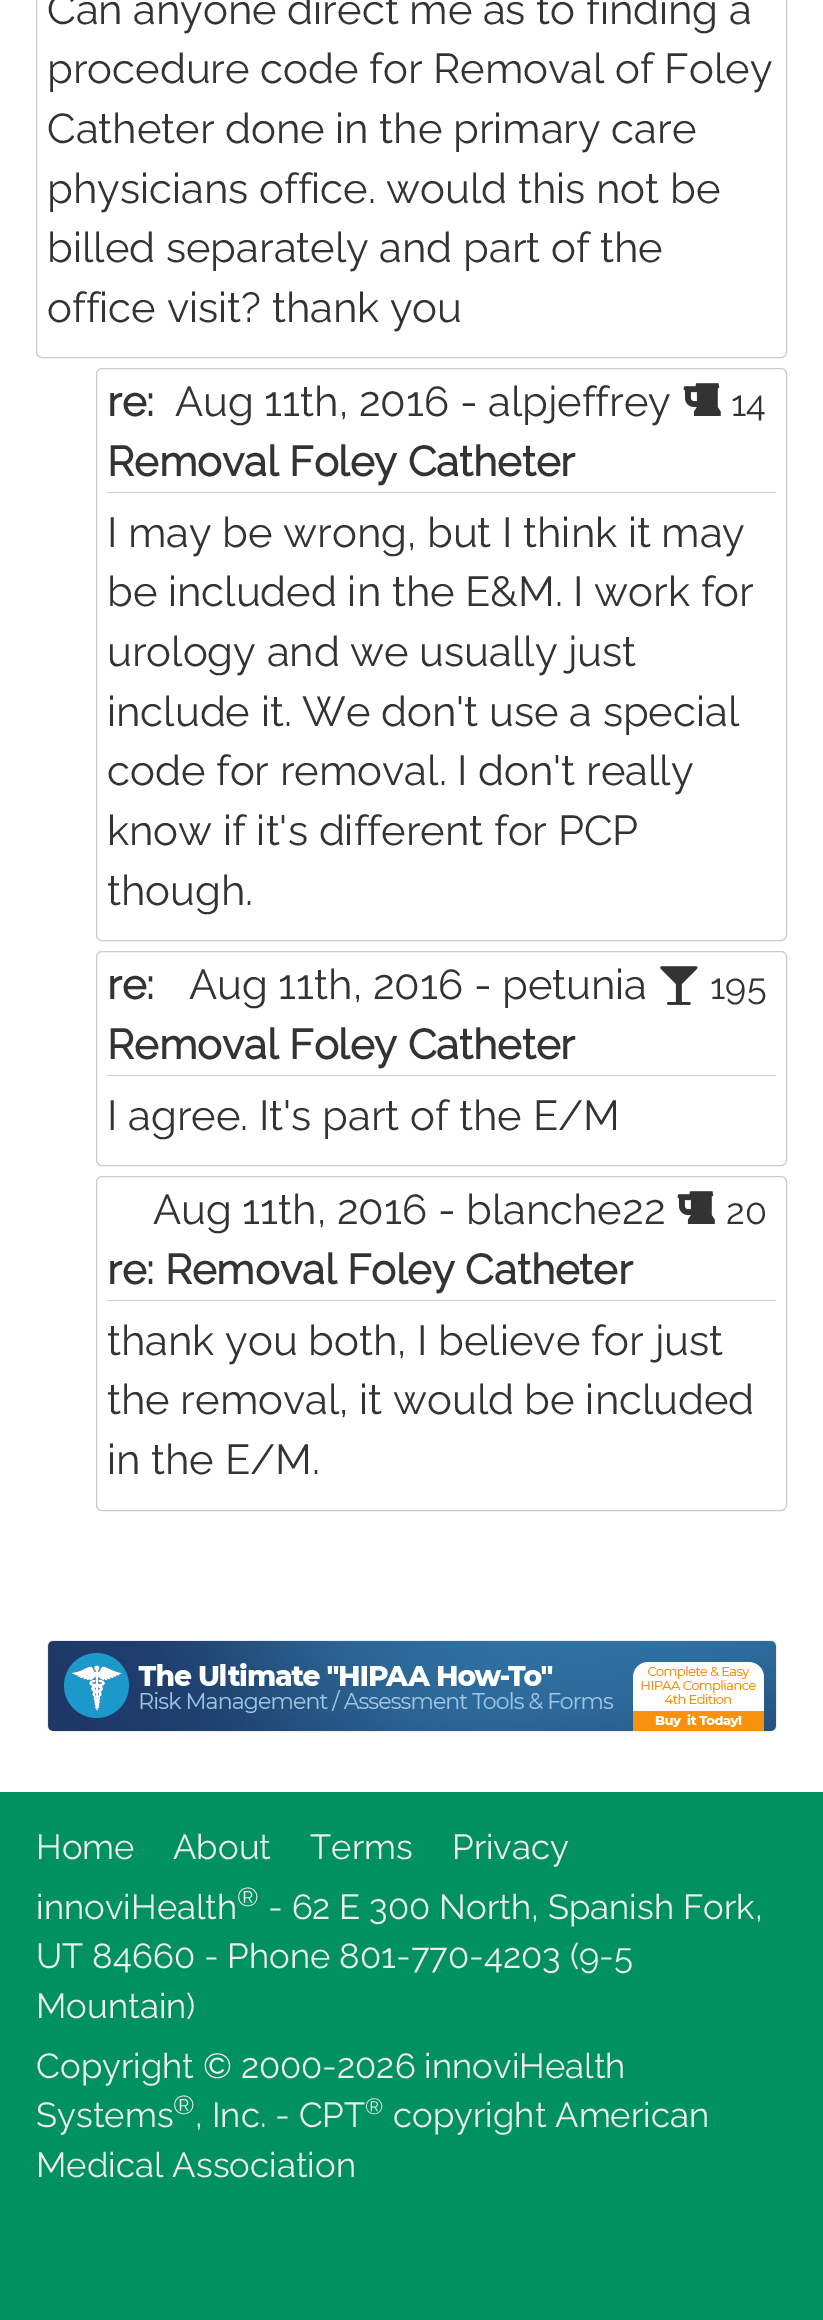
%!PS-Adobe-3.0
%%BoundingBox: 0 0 823 2320
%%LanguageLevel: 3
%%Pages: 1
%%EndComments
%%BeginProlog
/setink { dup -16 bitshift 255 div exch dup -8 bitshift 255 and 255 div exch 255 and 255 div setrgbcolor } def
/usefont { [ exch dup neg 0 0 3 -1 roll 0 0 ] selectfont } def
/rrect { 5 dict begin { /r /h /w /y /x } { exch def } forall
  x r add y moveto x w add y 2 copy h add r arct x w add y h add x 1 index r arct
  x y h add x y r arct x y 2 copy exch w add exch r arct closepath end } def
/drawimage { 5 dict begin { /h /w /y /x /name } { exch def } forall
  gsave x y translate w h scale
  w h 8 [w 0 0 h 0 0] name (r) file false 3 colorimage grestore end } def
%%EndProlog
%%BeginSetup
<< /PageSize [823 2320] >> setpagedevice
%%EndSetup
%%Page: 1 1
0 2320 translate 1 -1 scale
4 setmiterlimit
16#FFFFFF setink
0 0 823 2320 rectfill
16#CCCCCC setink
36.5 -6.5 750 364 5.5 rrect stroke
/Raleway-Thin 41.75 usefont
16#333333 setink
[
    [(Can anyone direct me as to finding a) 47 24]
    [(procedure code for Removal of Foley) 47 83]
    [(Catheter done in the primary care) 47 143]
    [(physicians office. would this not be) 47 203]
    [(billed separately and part of the) 47 262]
    [(office visit? thank you) 47 322]
] { aload pop moveto show } forall
16#CCCCCC setink
96.5 368.5 690 572 5.5 rrect stroke
16#333333 setink
175 416 moveto (Aug 11th, 2016 - alpjeffrey) show
(img1.raw) 683 383 38 33 drawimage
/Raleway-Thin 36 usefont
731 416 moveto (14) show
16#CCCCCC setink
107 492 669 1 rectfill
/Raleway-Bold 41.75 usefont
16#333333 setink
107 416 moveto (re:) show
107 476 moveto (Removal Foley Catheter) show
/Raleway-Thin 41.75 usefont
[
    [(I may be wrong, but I think it may) 107 547]
    [(be included in the E&M. I work for) 107 606]
    [(urology and we usually just) 107 666]
    [(include it. We don't use a special) 107 726]
    [(code for removal. I don't really) 107 785]
    [(know if it's different for PCP) 107 845]
    [(though.) 107 905]
] { aload pop moveto show } forall
16#CCCCCC setink
96.5 951.5 690 214 5.5 rrect stroke
16#333333 setink
189 999 moveto (Aug 11th, 2016 - petunia) show
(img2.raw) 660 966 38 39 drawimage
/Raleway-Thin 36 usefont
710 999 moveto (195) show
16#CCCCCC setink
107 1075 669 1 rectfill
/Raleway-Bold 41.75 usefont
16#333333 setink
107 999 moveto (re:) show
107 1059 moveto (Removal Foley Catheter) show
/Raleway-Thin 41.75 usefont
107 1130 moveto (I agree. It's part of the E/M) show
16#CCCCCC setink
96.5 1176.5 690 334 5.5 rrect stroke
16#333333 setink
153 1224 moveto (Aug 11th, 2016 - blanche22) show
(img1.raw) 677 1191 38 33 drawimage
/Raleway-Thin 36 usefont
726 1224 moveto (20) show
16#CCCCCC setink
107 1300 669 1 rectfill
/Raleway-Bold 41.75 usefont
16#333333 setink
107 1284 moveto (re: Removal Foley Catheter) show
/Raleway-Thin 41.75 usefont
[
    [(thank you both, I believe for just) 107 1355]
    [(the removal, it would be included) 107 1414]
    [(in the E/M.) 107 1474]
] { aload pop moveto show } forall
16#EEEEEE setink
47.5 1640.5 729 91 5.5 rrect stroke
(img3.raw) 48 1641 728 90 drawimage
16#009161 setink
0 1792 823 528 rectfill
/Raleway-Thin 34.75 usefont
16#EEEEEE setink
[
    [(Home) 36 1859]
    [(About) 173 1859]
    [(Terms) 310 1859]
    [(Privacy) 452 1859]
    [(innoviHealth) 36 1919]
] { aload pop moveto show } forall
/Raleway-Thin 26 usefont
237 1906 moveto (®) show
/Raleway-Thin 34.75 usefont
[
    [(- 62 E 300 North, Spanish Fork,) 268 1919]
    [(UT 84660 - Phone 801-770-4203 \(9-5) 36 1968]
    [(Mountain\)) 36 2018]
    [(Copyright © 2000-2026 innoviHealth) 36 2078]
    [(Systems) 36 2127]
] { aload pop moveto show } forall
/Raleway-Thin 26 usefont
173 2114 moveto (®) show
/Raleway-Thin 34.75 usefont
195 2127 moveto (, Inc. - CPT) show
/Raleway-Thin 22 usefont
365 2114 moveto (®) show
/Raleway-Thin 34.75 usefont
393 2127 moveto (copyright American) show
36 2177 moveto (Medical Association) show
showpage
%%EOF
